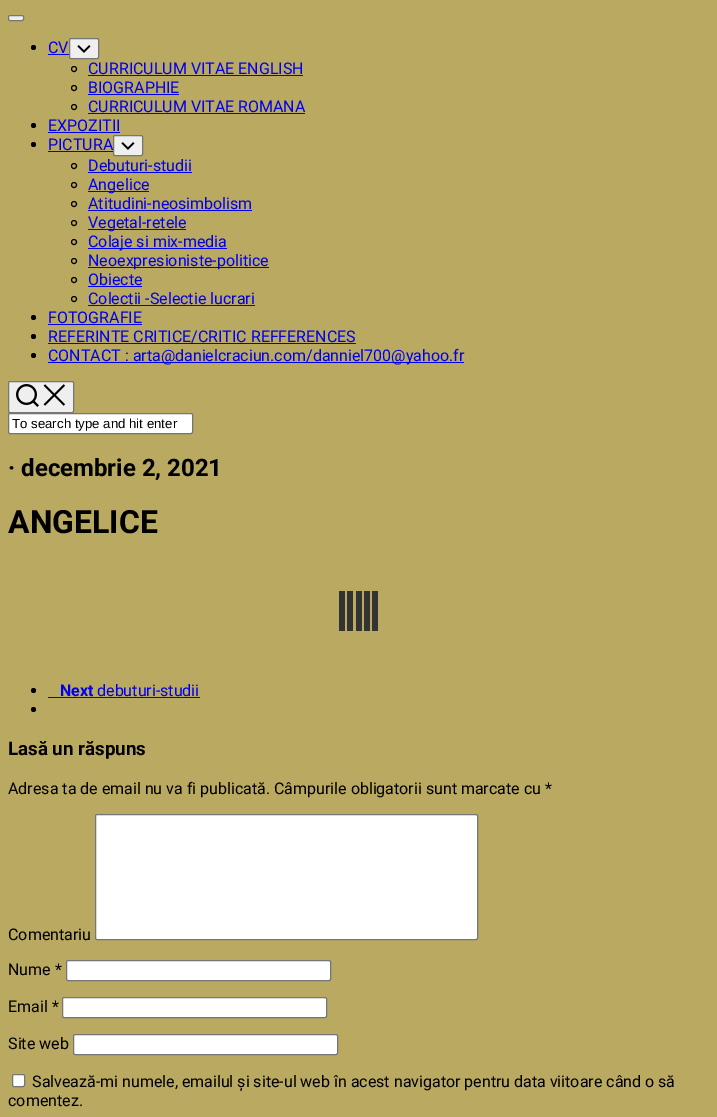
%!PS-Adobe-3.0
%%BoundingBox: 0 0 717 1117
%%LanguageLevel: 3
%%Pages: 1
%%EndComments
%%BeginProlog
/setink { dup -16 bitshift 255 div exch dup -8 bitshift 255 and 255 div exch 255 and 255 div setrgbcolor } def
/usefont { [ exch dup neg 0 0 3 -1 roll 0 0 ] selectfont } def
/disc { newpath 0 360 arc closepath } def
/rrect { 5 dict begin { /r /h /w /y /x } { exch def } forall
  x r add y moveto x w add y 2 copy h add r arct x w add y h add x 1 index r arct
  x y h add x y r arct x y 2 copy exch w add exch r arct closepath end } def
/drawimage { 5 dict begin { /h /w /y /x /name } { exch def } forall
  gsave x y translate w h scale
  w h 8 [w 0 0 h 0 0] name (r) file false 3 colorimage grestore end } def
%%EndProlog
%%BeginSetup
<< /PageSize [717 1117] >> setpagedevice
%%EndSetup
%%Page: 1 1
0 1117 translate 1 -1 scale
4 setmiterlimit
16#BAA960 setink
0 0 717 1117 rectfill
16#EFEFEF setink
8.5 15.5 15 5 1.5 rrect gsave fill grestore
16#767676 setink
stroke
16#000000 setink
33.5 47.5 2.5 disc fill
/Roboto-Regular 16 usefont
16#0000EE setink
48 53 moveto (CV) show
48 54 21 1 rectfill
16#EFEFEF setink
69.5 38.5 29 20 1.5 rrect gsave fill grestore
16#767676 setink
stroke
(img1.raw) 77 45 14 8 drawimage
16#000000 setink
74 69 2.5 disc stroke
16#0000EE setink
88 74 moveto (CURRICULUM VITAE ENGLISH) show
88 75 215 1 rectfill
16#000000 setink
74 88 2.5 disc stroke
16#0000EE setink
88 93 moveto (BIOGRAPHIE) show
88 94 91 1 rectfill
16#000000 setink
74 107 2.5 disc stroke
16#0000EE setink
88 112 moveto (CURRICULUM VITAE ROMANA) show
88 113 217 1 rectfill
16#000000 setink
33.5 125.5 2.5 disc fill
16#0000EE setink
48 131 moveto (EXPOZITII) show
48 132 72 1 rectfill
16#000000 setink
33.5 144.5 2.5 disc fill
16#0000EE setink
48 150 moveto (PICTURA) show
48 151 65 1 rectfill
16#EFEFEF setink
113.5 135.5 29 20 1.5 rrect gsave fill grestore
16#767676 setink
stroke
(img1.raw) 121 142 14 8 drawimage
16#000000 setink
74 166 2.5 disc stroke
16#0000EE setink
88 171 moveto (Debuturi-studii) show
88 172 104 1 rectfill
16#000000 setink
74 185 2.5 disc stroke
16#0000EE setink
88 191 61 1 rectfill
88 190 moveto (Angelice) show
16#000000 setink
74 204 2.5 disc stroke
16#0000EE setink
88 209 moveto (Atitudini-neosimbolism) show
88 210 164 1 rectfill
16#000000 setink
74 223 2.5 disc stroke
16#0000EE setink
88 229 98 1 rectfill
88 228 moveto (Vegetal-retele) show
16#000000 setink
74 242 2.5 disc stroke
16#0000EE setink
88 248 139 1 rectfill
88 247 moveto (Colaje si mix-media) show
16#000000 setink
74 261 2.5 disc stroke
16#0000EE setink
88 267 181 1 rectfill
88 266 moveto (Neoexpresioniste-politice) show
16#000000 setink
74 280 2.5 disc stroke
16#0000EE setink
88 285 moveto (Obiecte) show
88 286 54 1 rectfill
16#000000 setink
74 299 2.5 disc stroke
16#0000EE setink
88 304 moveto (Colectii -Selectie lucrari) show
88 305 167 1 rectfill
16#000000 setink
33.5 317.5 2.5 disc fill
16#0000EE setink
48 323 moveto (FOTOGRAFIE) show
48 324 94 1 rectfill
16#000000 setink
33.5 336.5 2.5 disc fill
16#0000EE setink
48 342 moveto (REFERINTE CRITICE/CRITIC REFFERENCES) show
48 343 308 1 rectfill
16#000000 setink
33.5 355.5 2.5 disc fill
16#0000EE setink
48 362 416 1 rectfill
48 361 moveto (CONTACT : arta@danielcraciun.com/danniel700@yahoo.fr) show
16#EFEFEF setink
8.5 381.5 65 31 1.5 rrect gsave fill grestore
16#767676 setink
stroke
(img2.raw) 16 384 23 23 drawimage
(img3.raw) 43 384 22 22 drawimage
16#FFFFFF setink
8.5 413.5 184 20 1.5 rrect gsave fill grestore
16#767676 setink
stroke
/LiberationSans-Regular 13.25 usefont
16#000000 setink
12 428 moveto (To search type and hit enter) show
/Roboto-Bold 24 usefont
8 476 moveto (· decembrie 2, 2021) show
/Roboto-Bold 32 usefont
8 533 moveto (ANGELICE) show
[
    [339 591 6 40 16#333333]
    [347 591 6 40 16#333333]
    [356 591 6 40 16#333333]
    [364 591 6 40 16#333333]
    [372 591 6 40 16#333333]
] { aload pop setink rectfill } forall
16#000000 setink
33.5 690.5 2.5 disc fill
/Roboto-Bold 16 usefont
16#0000EE setink
60 696 moveto (Next) show
48 697 152 1 rectfill
/Roboto-Regular 16 usefont
97 696 moveto (debuturi-studii) show
16#000000 setink
33.5 709.5 2.5 disc fill
/Roboto-Bold 18.75 usefont
8 755 moveto (Lasă un răspuns) show
/Roboto-Regular 16 usefont
8 794 moveto (Adresa ta de email nu va fi publicată. Câmpurile obligatorii sunt marcate cu *) show
8 940 moveto (Comentariu) show
16#FFFFFF setink
95.5 814.5 382 125 1.5 rrect gsave fill grestore
16#767676 setink
stroke
16#000000 setink
8 975 moveto (Nume *) show
16#FFFFFF setink
66.5 960.5 264 20 1.5 rrect gsave fill grestore
16#767676 setink
stroke
16#000000 setink
8 1012 moveto (Email *) show
16#FFFFFF setink
62.5 997.5 264 20 1.5 rrect gsave fill grestore
16#767676 setink
stroke
16#000000 setink
8 1049 moveto (Site web) show
16#FFFFFF setink
73.5 1034.5 264 20 1.5 rrect gsave fill grestore
16#767676 setink
stroke
16#FFFFFF setink
12.5 1074.5 12 12 1.5 rrect gsave fill grestore
16#767676 setink
stroke
16#000000 setink
32 1087 moveto (Salvează-mi numele, emailul și site-ul web în acest navigator pentru data viitoare când o să) show
8 1106 moveto (comentez.) show
showpage
%%EOF
